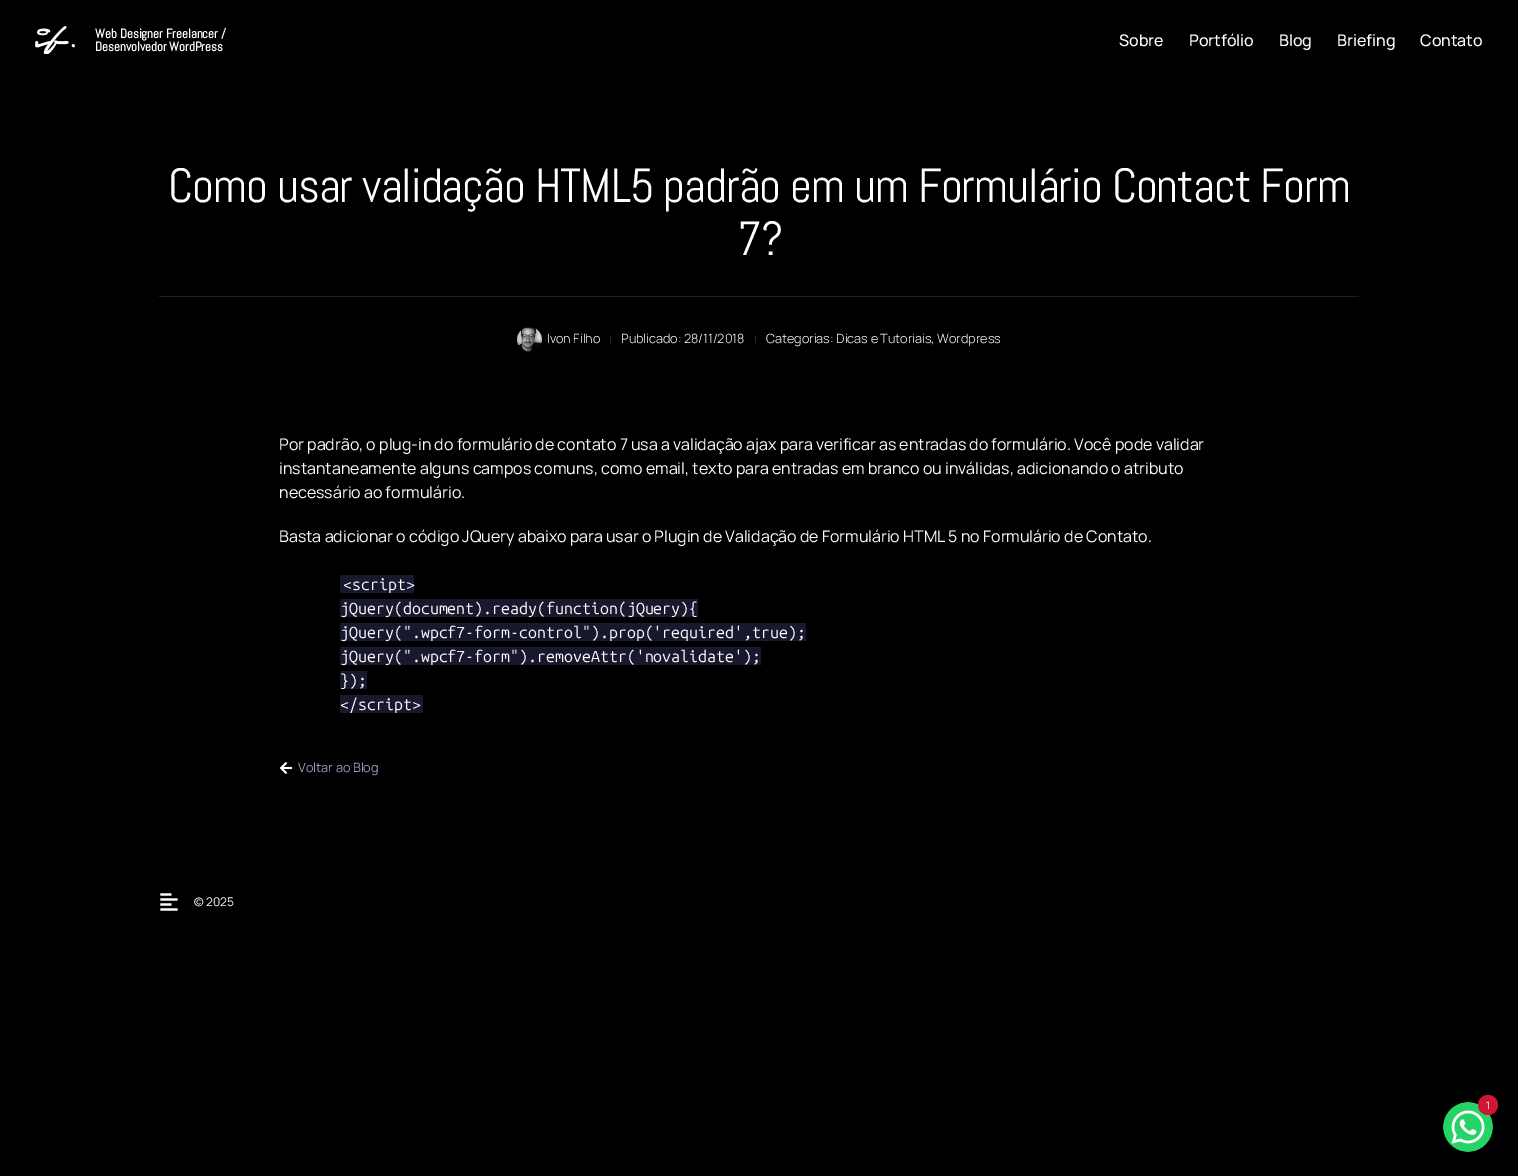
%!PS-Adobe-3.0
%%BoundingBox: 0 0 1518 1176
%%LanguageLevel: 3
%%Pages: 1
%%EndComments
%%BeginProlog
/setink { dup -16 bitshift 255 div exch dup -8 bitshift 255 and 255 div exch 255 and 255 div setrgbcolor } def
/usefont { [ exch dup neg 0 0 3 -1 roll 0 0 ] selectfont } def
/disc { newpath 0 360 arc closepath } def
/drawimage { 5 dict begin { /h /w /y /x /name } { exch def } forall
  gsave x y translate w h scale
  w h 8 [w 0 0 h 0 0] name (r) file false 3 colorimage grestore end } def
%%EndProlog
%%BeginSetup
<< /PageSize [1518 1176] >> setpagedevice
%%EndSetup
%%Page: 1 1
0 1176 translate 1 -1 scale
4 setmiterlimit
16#000000 setink
0 0 1518 1176 rectfill
(img1.raw) 35 26 40 28 drawimage
/Abel-Bold 13 usefont
16#FFFFFF setink
95 38 moveto (Web Designer Freelancer /) show
95 51 moveto (Desenvolvedor WordPress) show
/Manrope-Medium 16 usefont
[
    [(Sobre) 1119 46]
    [(Portfólio) 1189 46]
    [(Blog) 1279 46]
    [(Briefing) 1337 46]
    [(Contato) 1420 46]
] { aload pop moveto show } forall
/Abel-Regular 48 usefont
168 202 moveto -1 0 (Como usar validação HTML5 padrão em um Formulário Contact Form) ashow
737 255 moveto -1 0 (7?) ashow
16#221C30 setink
159 296 1200 1 rectfill
(img2.raw) 517 327 25 25 drawimage
/Manrope-Light 12.75 usefont
16#FFFFFF setink
547 343 moveto (Ivon Filho) show
16#262626 setink
610 336 1 7 rectfill
16#FFFFFF setink
621 343 moveto (Publicado: 28/11/2018) show
16#262626 setink
755 336 1 7 rectfill
16#FFFFFF setink
766 343 moveto (Categorias: Dicas e Tutoriais, Wordpress) show
/Manrope-Regular 16 usefont
[
    [(Por padrão, o plug-in do formulário de contato 7 usa a validação ajax para verificar as entradas do formulário. Você pode validar) 279 450]
    [(instantaneamente alguns campos comuns, como email, texto para entradas em branco ou inválidas, adicionando o atributo) 279 474]
    [(necessário ao formulário.) 279 498]
    [(Basta adicionar o código JQuery abaixo para usar o Plugin de Validação de Formulário HTML 5 no Formulário de Contato.) 279 542]
] { aload pop moveto show } forall
16#18182F setink
342 575 moveto 414 575 lineto 414 593 lineto 342 593 lineto 341 593 340 592 340 591 curveto 340 577 lineto 340 576 341 575 342 575 curveto closepath fill
/UbuntuMono-Regular 16 usefont
16#FFFFFF setink
343 590 moveto (<script>) show
16#18182F setink
340 599 358 18 rectfill
16#FFFFFF setink
340 614 moveto (jQuery\(document\).ready\(function\(jQuery\){) show
16#18182F setink
340 623 466 18 rectfill
16#FFFFFF setink
340 638 moveto (jQuery\(".wpcf7-form-control"\).prop\('required',true\);) show
16#18182F setink
340 647 421 18 rectfill
16#FFFFFF setink
340 662 moveto (jQuery\(".wpcf7-form"\).removeAttr\('novalidate'\);) show
16#18182F setink
340 671 27 18 rectfill
16#FFFFFF setink
340 686 moveto (}\);) show
16#18182F setink
340 695 moveto 421 695 lineto 422 695 423 696 423 697 curveto 423 711 lineto 423 712 422 713 421 713 curveto 340 713 lineto closepath fill
16#FFFFFF setink
340 710 moveto (</script>) show
(img3.raw) 280 762 13 12 drawimage
/Manrope-Regular 12.75 usefont
16#9C98C0 setink
298 772 moveto (Voltar ao Blog) show
(img4.raw) 160 893 18 18 drawimage
/Manrope-Regular 12 usefont
16#FFFFFF setink
194 906 moveto (© 2025) show
(img5.raw) 1443 1102 50 50 drawimage
16#CF1635 setink
1488 1105 10 disc fill
/Manrope-Regular 10 usefont
16#FFFFFF setink
1486 1109 moveto (1) show
showpage
%%EOF
